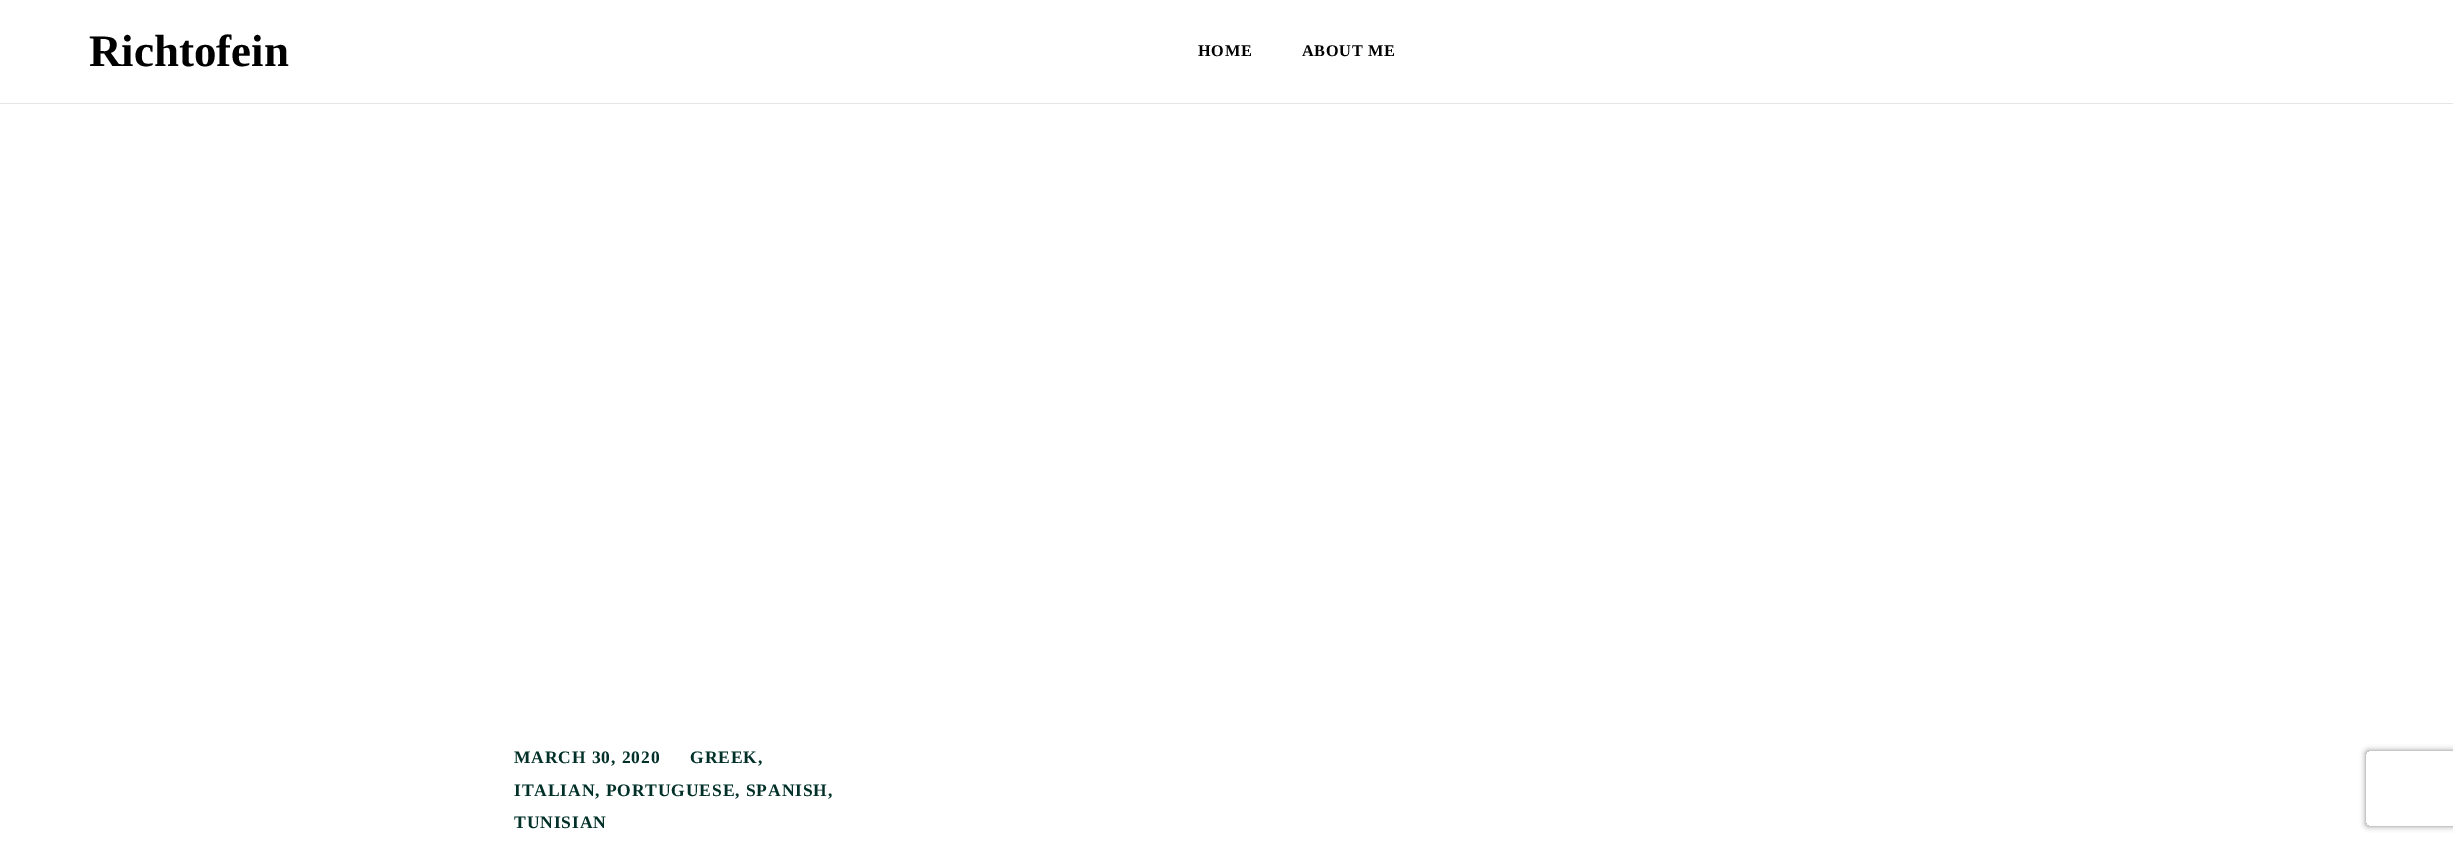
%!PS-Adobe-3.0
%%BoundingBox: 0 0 2453 843
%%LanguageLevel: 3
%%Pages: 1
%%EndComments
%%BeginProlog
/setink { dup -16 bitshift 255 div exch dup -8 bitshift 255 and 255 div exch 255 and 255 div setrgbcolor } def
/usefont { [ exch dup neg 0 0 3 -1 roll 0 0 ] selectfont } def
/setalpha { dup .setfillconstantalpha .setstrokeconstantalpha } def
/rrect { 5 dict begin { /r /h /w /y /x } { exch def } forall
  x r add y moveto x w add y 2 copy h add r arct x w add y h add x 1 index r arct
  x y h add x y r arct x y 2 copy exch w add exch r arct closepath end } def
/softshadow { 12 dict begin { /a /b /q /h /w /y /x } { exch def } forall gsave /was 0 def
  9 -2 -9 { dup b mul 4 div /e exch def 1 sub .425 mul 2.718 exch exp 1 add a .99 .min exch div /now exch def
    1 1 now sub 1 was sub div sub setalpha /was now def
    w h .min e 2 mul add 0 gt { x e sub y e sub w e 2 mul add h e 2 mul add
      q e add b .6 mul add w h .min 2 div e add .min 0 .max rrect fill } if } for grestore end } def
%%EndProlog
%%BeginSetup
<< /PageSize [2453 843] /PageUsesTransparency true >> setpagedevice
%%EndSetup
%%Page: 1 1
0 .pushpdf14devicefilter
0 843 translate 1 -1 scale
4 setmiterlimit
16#FFFFFF setink
0 0 2453 843 rectfill
16#E6E6E6 setink
0 103 2453 1 rectfill
/LiberationSerif-Bold 45 usefont
16#000000 setink
89 66 moveto (Richtofein) show
/LiberationSerif-Bold 16.25 usefont
1198 56 moveto 0.75 0 (HOME) ashow
1302 56 moveto 0.75 0 (ABOUT ME) ashow
/LiberationSerif-Bold 17.5 usefont
16#003027 setink
514 763 moveto 0.9 0 (MARCH 30, 2020) ashow
690 763 moveto 0.9 0 (GREEK,) ashow
514 796 moveto 0.9 0 (ITALIAN, PORTUGUESE, SPANISH,) ashow
514 828 moveto 0.9 0 (TUNISIAN) ashow
gsave
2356 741 moveto 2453 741 lineto 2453 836 lineto 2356 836 lineto closepath 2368.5 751 moveto 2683.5 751 lineto 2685 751 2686 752 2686 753.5 curveto 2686 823.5 lineto 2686 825 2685 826 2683.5 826 curveto 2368.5 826 lineto 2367 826 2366 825 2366 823.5 curveto 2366 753.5 lineto 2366 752 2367 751 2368.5 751 curveto closepath eoclip newpath
16#808080 setink
2366 751 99 75 2.5 3 1 softshadow
grestore
.poppdf14devicefilter showpage
%%EOF
